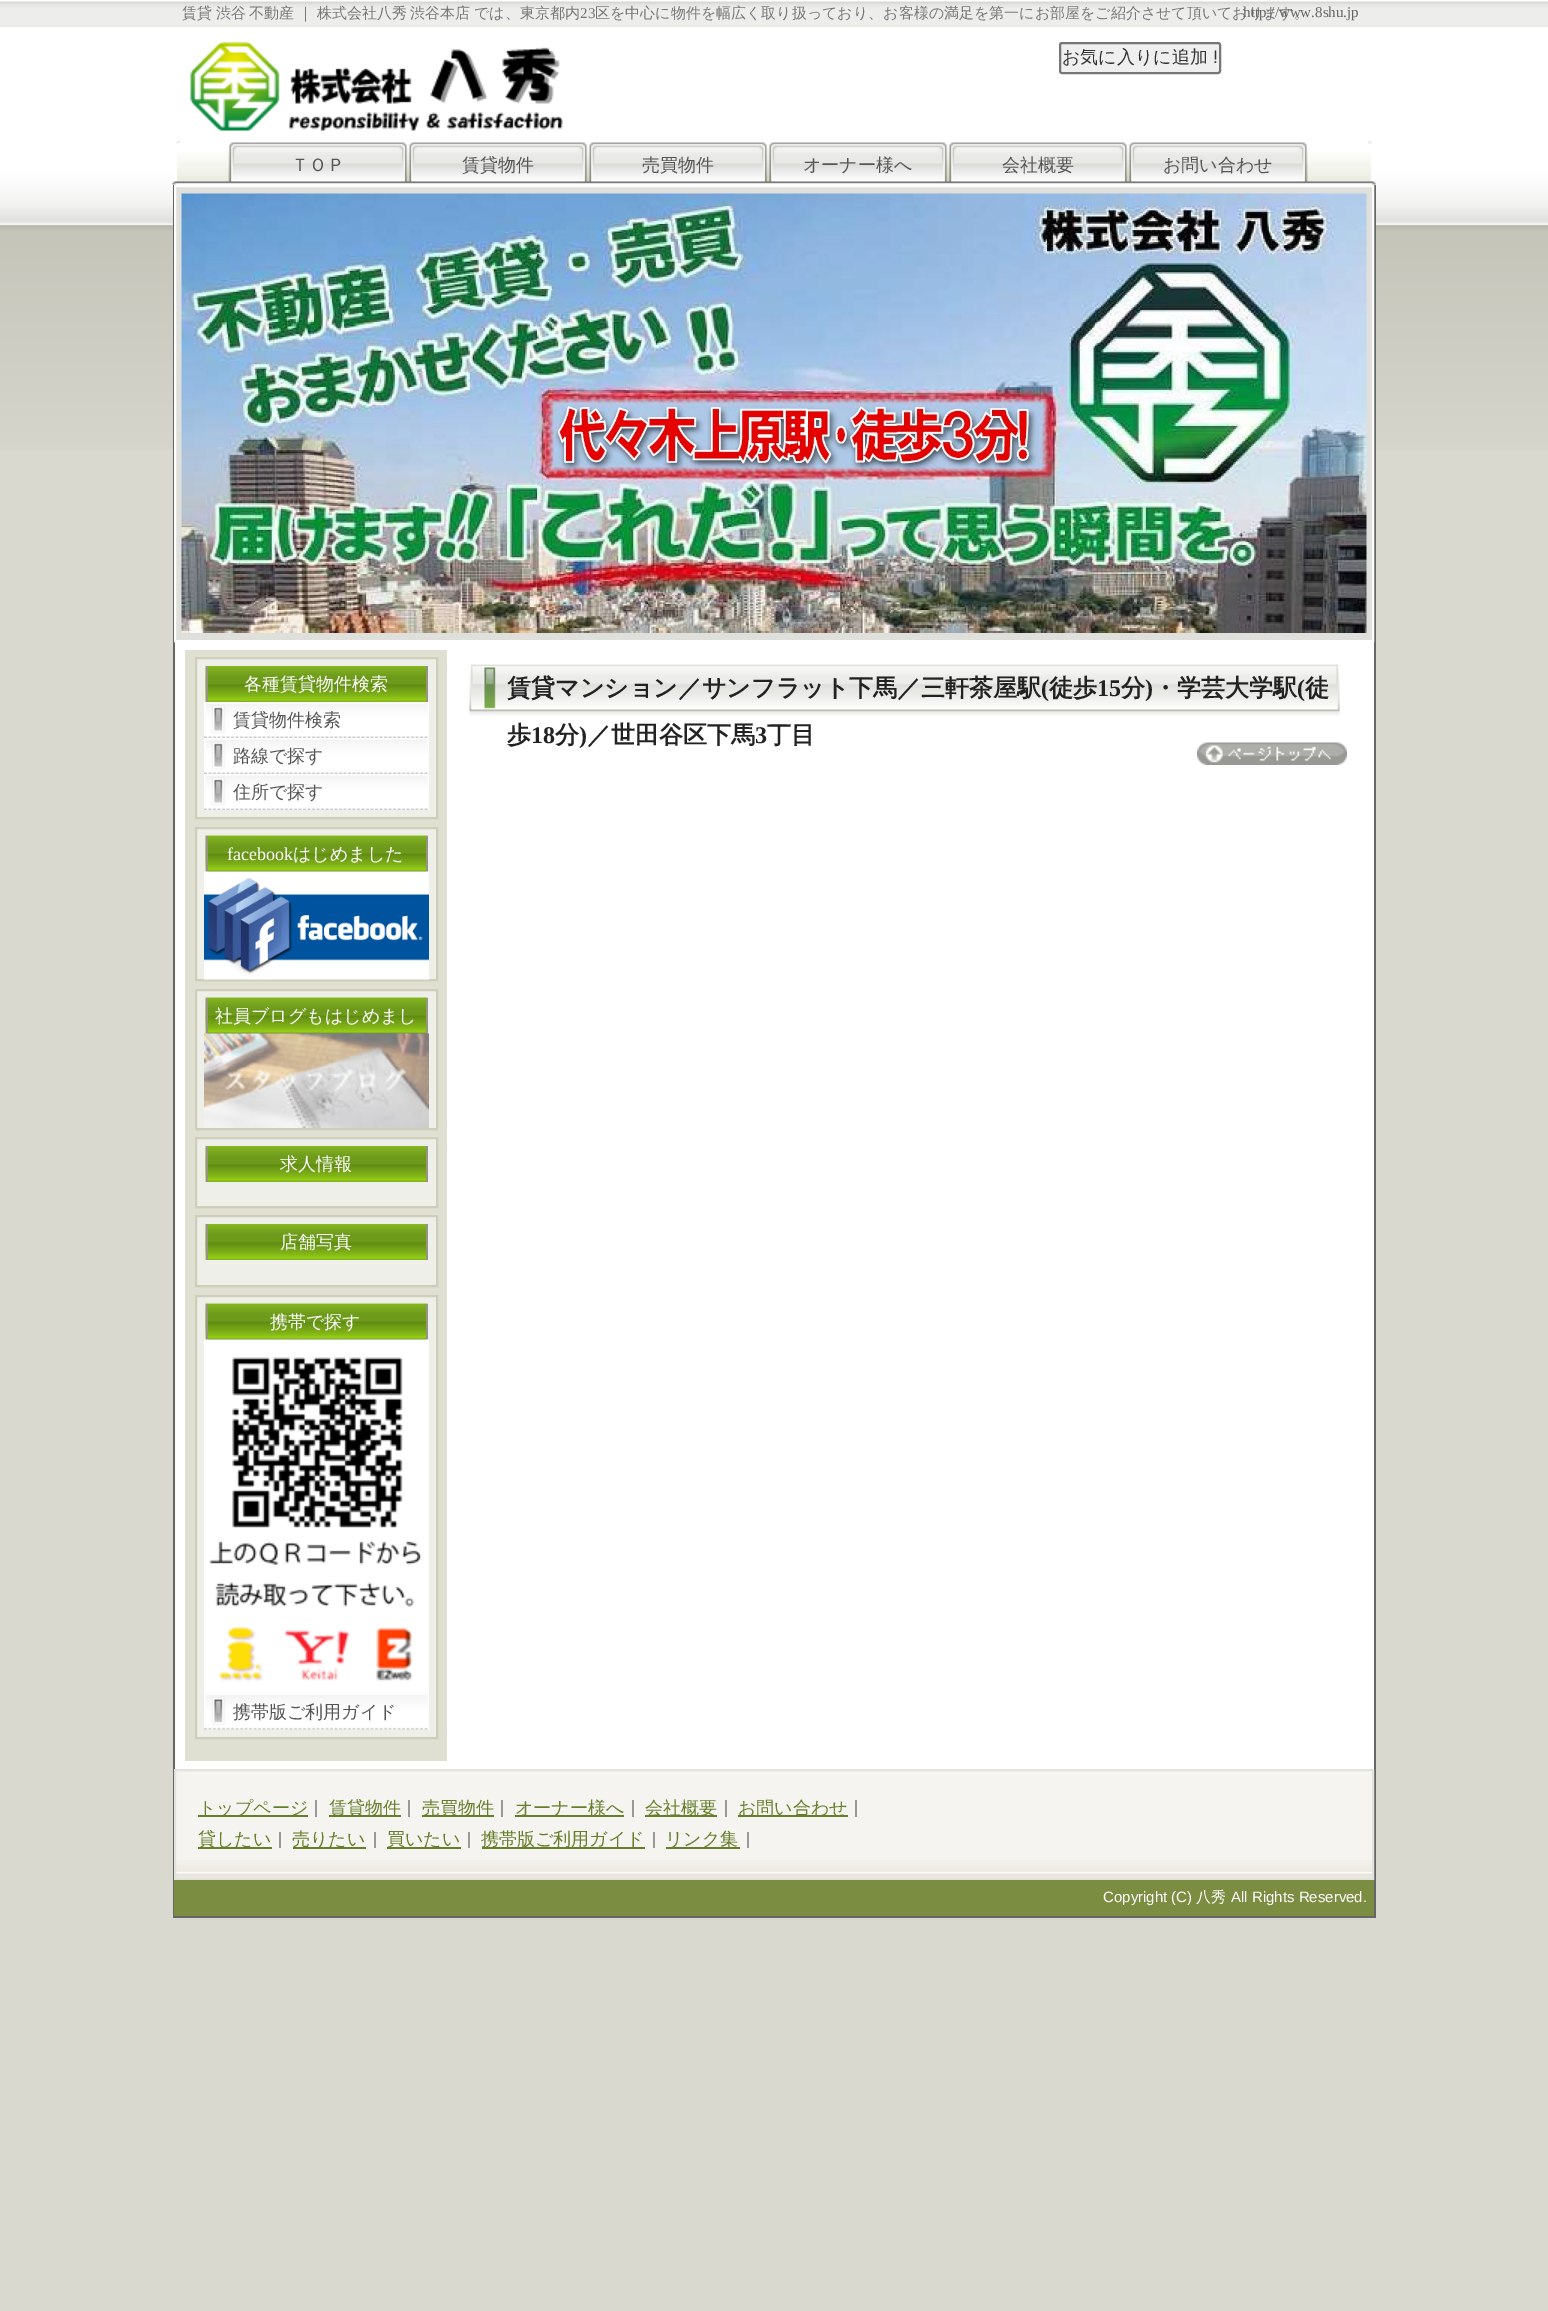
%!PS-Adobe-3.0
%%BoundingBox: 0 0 1548 2311
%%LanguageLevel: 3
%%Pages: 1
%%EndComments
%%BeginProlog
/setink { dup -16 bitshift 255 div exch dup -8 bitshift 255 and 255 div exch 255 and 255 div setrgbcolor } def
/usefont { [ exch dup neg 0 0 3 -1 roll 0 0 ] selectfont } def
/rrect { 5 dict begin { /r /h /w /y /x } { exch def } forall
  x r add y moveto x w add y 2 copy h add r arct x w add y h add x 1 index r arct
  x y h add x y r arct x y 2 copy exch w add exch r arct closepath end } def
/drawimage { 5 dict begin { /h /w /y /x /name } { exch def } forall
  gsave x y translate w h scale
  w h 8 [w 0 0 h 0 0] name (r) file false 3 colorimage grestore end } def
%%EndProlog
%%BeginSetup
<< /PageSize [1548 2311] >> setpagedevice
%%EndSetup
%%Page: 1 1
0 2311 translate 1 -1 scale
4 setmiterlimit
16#D9D9D0 setink
0 0 1548 2311 rectfill
(img1.raw) 0 0 1548 450 drawimage
/WenQuanYiZenHei-Medium 15 usefont
16#777777 setink
182 18 moveto -0.75 0 32 (賃貸 渋谷 不動産 ｜ 株式会社八秀 渋谷本店) widthshow
474 18 moveto (では、東京都内) show
/LiberationSerif-Regular 15 usefont
580 18 moveto (23) show
/WenQuanYiZenHei-Medium 15 usefont
595 18 moveto (区を中心に物件を幅広く取り扱っており、お客様の満足を第一にお部屋をご紹介させて頂いております。) show
/LiberationSerif-Regular 15 usefont
16#666666 setink
1243 17 moveto (http://www.8shu.jp) show
(img2.raw) 190 42 373 89 drawimage
16#EFEFEF setink
1060 43 160 30 2 rrect gsave fill grestore
16#767676 setink
2 setlinewidth
stroke
/WenQuanYiZenHei-Medium 18 usefont
16#333333 setink
1062 63 moveto (お気に入りに追加) show
/LiberationSans-Regular 18 usefont
1213 63 moveto (!) show
(img3.raw) 172 141 1204 44 drawimage
(img4.raw) 228 142 180 40 drawimage
/WenQuanYiZenHei-Medium 18 usefont
16#555555 setink
291 171 moveto (ＴＯＰ) show
(img5.raw) 408 142 180 40 drawimage
462 171 moveto (賃貸物件) show
(img5.raw) 588 142 180 40 drawimage
642 171 moveto (売買物件) show
(img4.raw) 768 142 180 40 drawimage
803 171 moveto (オーナー様へ) show
(img4.raw) 948 142 180 40 drawimage
1002 171 moveto (会社概要) show
(img5.raw) 1128 142 180 40 drawimage
1163 171 moveto (お問い合わせ) show
[
    [175 642 1199 1127 16#FFFFFF]
    [1374 185 2 1732 16#666666]
    [173 1916 1203 2 16#666666]
    [173 185 2 1732 16#666666]
] { aload pop setink rectfill } forall
16#DFDFDB setink
175 186 moveto 1373 186 lineto 1373 641 lineto 175 641 lineto closepath gsave fill grestore
16#FFFFFF setink
stroke
(img6.raw) 181 193 1186 440 drawimage
16#DFDFD2 setink
185 650 262 1111 rectfill
16#EFEFE9 setink
196 658 moveto 437 658 lineto 437 818 lineto 196 818 lineto closepath gsave fill grestore
16#CECEB9 setink
stroke
(img7.raw) 205 666 221 36 drawimage
16#969583 setink
426 666 2 36 rectfill
206 666 2 36 rectfill
16#FFFFFF setink
244 690 moveto (各種賃貸物件検索) show
(img8.raw) 204 702 225 36 drawimage
16#555555 setink
233 726 moveto (賃貸物件検索) show
(img8.raw) 204 738 225 36 drawimage
233 762 moveto (路線で探す) show
(img8.raw) 204 774 225 36 drawimage
233 798 moveto (住所で探す) show
16#EFEFE9 setink
196 828 moveto 437 828 lineto 437 980 lineto 196 980 lineto closepath gsave fill grestore
16#CECEB9 setink
stroke
(img9.raw) 205 835 223 37 drawimage
16#969583 setink
426 836 2 36 rectfill
206 836 2 36 rectfill
/LiberationSerif-Regular 18 usefont
16#FFFFFF setink
227 860 moveto (facebook) show
/WenQuanYiZenHei-Medium 18 usefont
293 860 moveto (はじめました) show
(img10.raw) 204 871 225 109 drawimage
16#EFEFE9 setink
196 990 moveto 437 990 lineto 437 1129 lineto 196 1129 lineto closepath gsave fill grestore
16#CECEB9 setink
stroke
(img9.raw) 205 997 223 37 drawimage
16#969583 setink
426 998 2 36 rectfill
206 998 2 36 rectfill
16#FFFFFF setink
215 1022 moveto (社員ブログもはじめまし) show
(img11.raw) 204 1033 225 95 drawimage
16#EFEFE9 setink
196 1138 moveto 437 1138 lineto 437 1207 lineto 196 1207 lineto closepath gsave fill grestore
16#CECEB9 setink
stroke
(img12.raw) 205 1146 221 36 drawimage
16#969583 setink
426 1146 2 36 rectfill
206 1146 2 36 rectfill
16#FFFFFF setink
280 1170 moveto (求人情報) show
16#EFEFE9 setink
196 1216 moveto 437 1216 lineto 437 1286 lineto 196 1286 lineto closepath gsave fill grestore
16#CECEB9 setink
stroke
(img12.raw) 205 1224 221 36 drawimage
16#969583 setink
426 1224 2 36 rectfill
206 1224 2 36 rectfill
16#FFFFFF setink
280 1248 moveto (店舗写真) show
16#EFEFE9 setink
196 1296 moveto 437 1296 lineto 437 1738 lineto 196 1738 lineto closepath gsave fill grestore
16#CECEB9 setink
stroke
(img13.raw) 205 1303 223 37 drawimage
16#969583 setink
426 1304 2 36 rectfill
206 1304 2 36 rectfill
16#FFFFFF setink
270 1328 moveto (携帯で探す) show
16#EEEEEE setink
204 1729 225 1 rectfill
(img15.raw) 204 1693 225 37 drawimage
(img14.raw) 204 1339 225 355 drawimage
16#555555 setink
233 1718 moveto (携帯版ご利用ガイド) show
(img16.raw) 469 664 871 52 drawimage
/WenQuanYiZenHei-Bold 24 usefont
16#222222 setink
507 696 moveto (賃貸マンション／サンフラット下馬／三軒茶屋駅) show
/LiberationSerif-Bold 24 usefont
1041 696 moveto (\() show
/WenQuanYiZenHei-Bold 24 usefont
1049 696 moveto (徒歩) show
/LiberationSerif-Bold 24 usefont
1097 696 moveto (15) show
/WenQuanYiZenHei-Bold 24 usefont
1121 696 moveto (分) show
/LiberationSerif-Bold 24 usefont
1145 696 moveto (\)) show
/WenQuanYiZenHei-Bold 24 usefont
1153 696 moveto (・学芸大学駅) show
/LiberationSerif-Bold 24 usefont
1297 696 moveto (\() show
/WenQuanYiZenHei-Bold 24 usefont
1305 696 moveto (徒) show
507 743 moveto (歩) show
/LiberationSerif-Bold 24 usefont
531 743 moveto (18) show
/WenQuanYiZenHei-Bold 24 usefont
555 743 moveto (分) show
/LiberationSerif-Bold 24 usefont
579 743 moveto (\)) show
/WenQuanYiZenHei-Bold 24 usefont
587 743 moveto (／世田谷区下馬) show
/LiberationSerif-Bold 24 usefont
755 743 moveto (3) show
/WenQuanYiZenHei-Bold 24 usefont
767 743 moveto (丁目) show
(img17.raw) 1197 742 150 23 drawimage
16#F5F4F0 setink
176 1771 1196 89 rectfill
(img18.raw) 176 1860 1196 18 drawimage
16#E2E2DE setink
175 1770 1198 109 rectstroke
16#657E29 setink
198 1815 110 2 rectfill
/WenQuanYiZenHei-Medium 18 usefont
198 1814 moveto (トップページ) show
16#999999 setink
315 1800 2 17 rectfill
16#657E29 setink
329 1815 72 2 rectfill
329 1814 moveto (賃貸物件) show
16#999999 setink
408 1800 2 17 rectfill
16#657E29 setink
422 1815 72 2 rectfill
422 1814 moveto (売買物件) show
16#999999 setink
501 1800 2 17 rectfill
16#657E29 setink
515 1815 109 2 rectfill
515 1814 moveto (オーナー様へ) show
16#999999 setink
632 1800 2 17 rectfill
16#657E29 setink
645 1815 72 2 rectfill
645 1814 moveto (会社概要) show
16#999999 setink
725 1800 2 17 rectfill
16#657E29 setink
738 1815 110 2 rectfill
738 1814 moveto (お問い合わせ) show
16#999999 setink
855 1800 2 17 rectfill
16#657E29 setink
198 1847 74 2 rectfill
198 1845 moveto (貸したい) show
16#999999 setink
279 1832 2 16 rectfill
16#657E29 setink
293 1847 73 2 rectfill
292 1845 moveto (売りたい) show
16#999999 setink
374 1832 2 16 rectfill
16#657E29 setink
387 1847 74 2 rectfill
387 1845 moveto (買いたい) show
16#999999 setink
468 1832 2 16 rectfill
16#657E29 setink
482 1847 163 2 rectfill
481 1845 moveto (携帯版ご利用ガイド) show
16#999999 setink
653 1832 2 16 rectfill
16#657E29 setink
666 1847 74 2 rectfill
665 1845 moveto (リンク集) show
16#999999 setink
747 1832 2 16 rectfill
16#7A8D41 setink
174 1880 1200 36 rectfill
/LiberationSans-Regular 15 usefont
16#FFFFFF setink
1103 1902 moveto (Copyright \(C\)) show
/WenQuanYiZenHei-Medium 15 usefont
1196 1902 moveto (八秀) show
/LiberationSans-Regular 15 usefont
1231 1902 moveto (All Rights Reserved.) show
showpage
%%EOF
